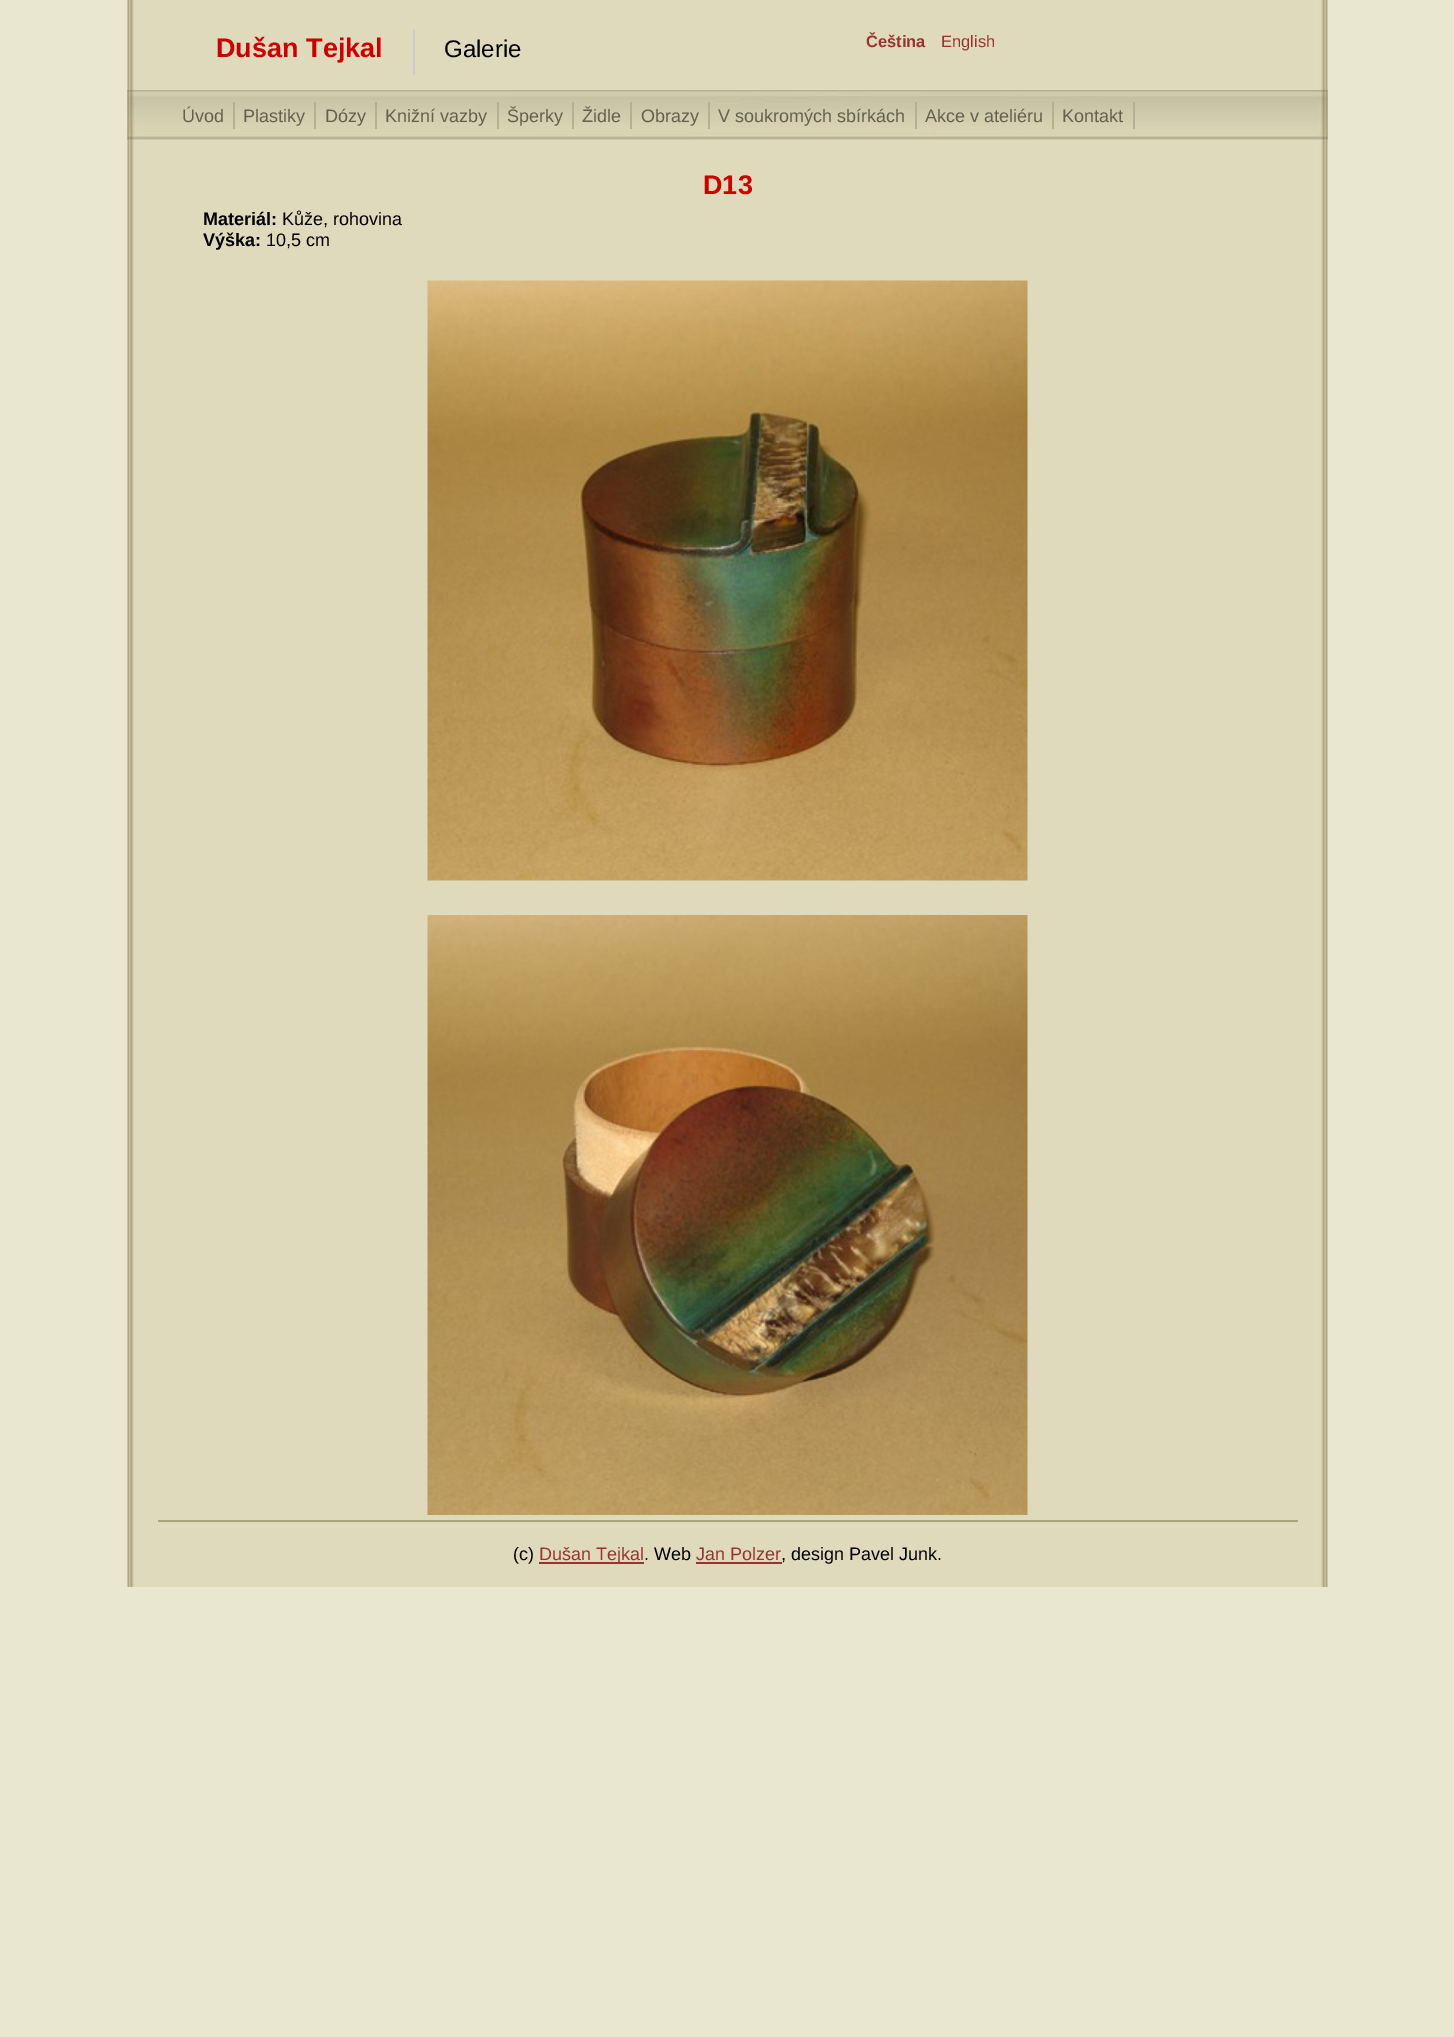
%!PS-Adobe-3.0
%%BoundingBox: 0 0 1454 2037
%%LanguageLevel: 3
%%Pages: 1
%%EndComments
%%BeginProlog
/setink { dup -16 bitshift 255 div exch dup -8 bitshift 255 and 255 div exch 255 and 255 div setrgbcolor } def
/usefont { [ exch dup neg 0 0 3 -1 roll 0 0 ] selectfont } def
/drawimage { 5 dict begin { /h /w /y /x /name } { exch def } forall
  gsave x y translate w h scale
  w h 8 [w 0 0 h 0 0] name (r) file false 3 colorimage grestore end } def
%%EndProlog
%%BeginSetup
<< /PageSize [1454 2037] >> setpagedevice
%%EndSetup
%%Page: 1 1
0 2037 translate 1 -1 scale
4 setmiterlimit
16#EAE7D1 setink
0 0 1454 2037 rectfill
(img1.raw) 127 0 1201 1587 drawimage
16#CCCCCC setink
413 30 2 45 rectfill
/LiberationSans-Bold 27 usefont
16#CC0000 setink
216 57 moveto (Dušan Tejkal) show
/LiberationSans-Regular 24 usefont
16#000000 setink
444 57 moveto (Galerie) show
/LiberationSans-Bold 16.5 usefont
16#993333 setink
866 47 moveto (Čeština) show
/LiberationSans-Regular 16.5 usefont
941 47 moveto (English) show
(img2.raw) 127 90 1201 50 drawimage
16#B5B093 setink
233 102 2 27 rectfill
/LiberationSans-Regular 18 usefont
16#63604E setink
182 122 moveto (Úvod) show
16#B5B093 setink
314 102 2 27 rectfill
16#63604E setink
243 122 moveto (Plastiky) show
16#B5B093 setink
375 102 2 27 rectfill
16#63604E setink
325 122 moveto (Dózy) show
16#B5B093 setink
497 102 2 27 rectfill
16#63604E setink
385 122 moveto (Knižní vazby) show
16#B5B093 setink
572 102 2 27 rectfill
16#63604E setink
507 122 moveto (Šperky) show
16#B5B093 setink
630 102 2 27 rectfill
16#63604E setink
582 122 moveto (Židle) show
16#B5B093 setink
708 102 2 27 rectfill
16#63604E setink
641 122 moveto (Obrazy) show
16#B5B093 setink
915 102 2 27 rectfill
16#63604E setink
718 122 moveto (V soukromých sbírkách) show
16#B5B093 setink
1052 102 2 27 rectfill
16#63604E setink
925 122 moveto (Akce v ateliéru) show
16#B5B093 setink
1133 102 2 27 rectfill
16#63604E setink
1062 122 moveto (Kontakt) show
/LiberationSans-Bold 27 usefont
16#CC0000 setink
703 194 moveto (D13) show
/LiberationSans-Bold 18 usefont
16#000000 setink
203 225 moveto (Materiál:) show
/LiberationSans-Regular 18 usefont
282 225 moveto (Kůže, rohovina) show
/LiberationSans-Bold 18 usefont
203 246 moveto (Výška:) show
/LiberationSans-Regular 18 usefont
266 246 moveto (10,5 cm) show
(img3.raw) 427 280 601 601 drawimage
(img4.raw) 427 915 601 600 drawimage
16#AAA17E setink
158 1520 1140 2 rectfill
16#000000 setink
513 1560 moveto (\(c\)) show
16#993333 setink
539 1562 105 2 rectfill
539 1560 moveto (Dušan Tejkal) show
16#000000 setink
644 1560 moveto (. Web) show
16#993333 setink
696 1560 moveto (Jan Polzer) show
696 1562 86 2 rectfill
16#000000 setink
781 1560 moveto (, design Pavel Junk.) show
showpage
%%EOF
